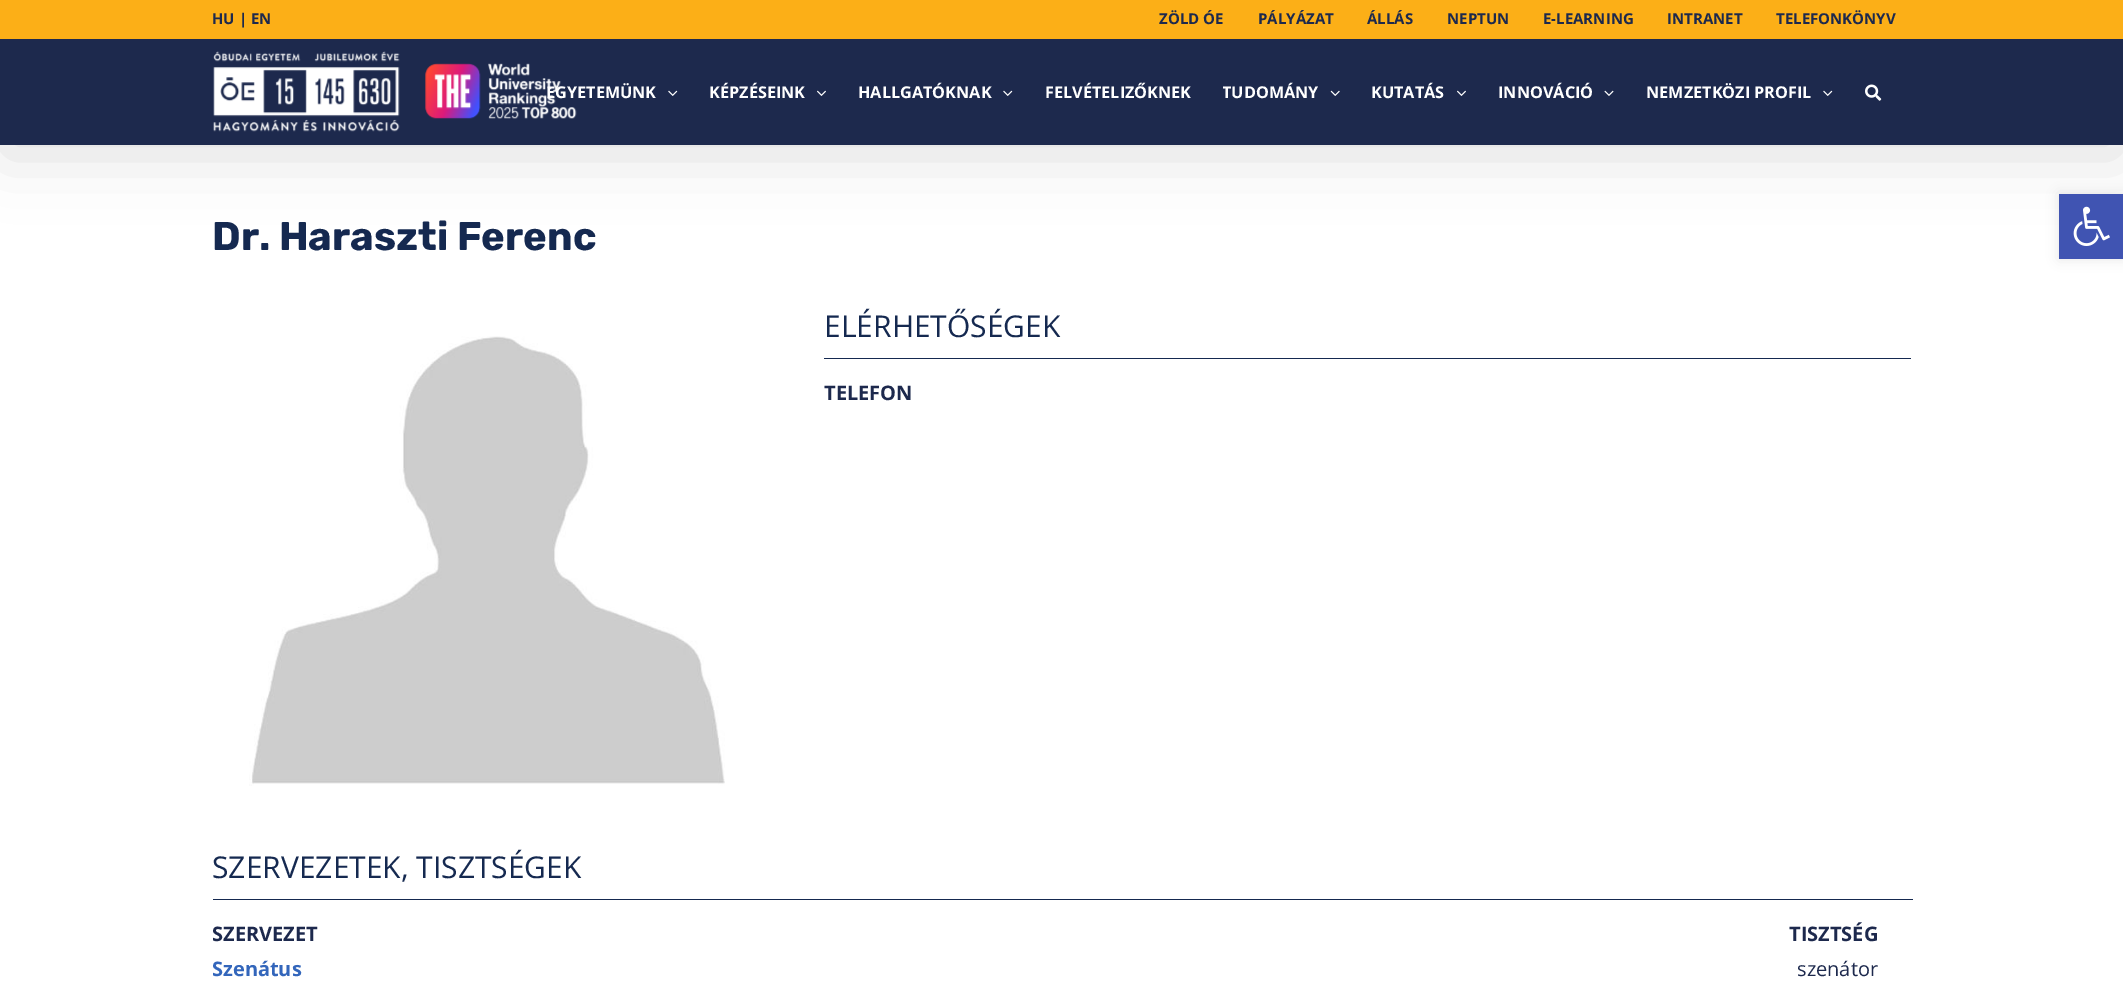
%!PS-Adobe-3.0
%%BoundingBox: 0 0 2123 993
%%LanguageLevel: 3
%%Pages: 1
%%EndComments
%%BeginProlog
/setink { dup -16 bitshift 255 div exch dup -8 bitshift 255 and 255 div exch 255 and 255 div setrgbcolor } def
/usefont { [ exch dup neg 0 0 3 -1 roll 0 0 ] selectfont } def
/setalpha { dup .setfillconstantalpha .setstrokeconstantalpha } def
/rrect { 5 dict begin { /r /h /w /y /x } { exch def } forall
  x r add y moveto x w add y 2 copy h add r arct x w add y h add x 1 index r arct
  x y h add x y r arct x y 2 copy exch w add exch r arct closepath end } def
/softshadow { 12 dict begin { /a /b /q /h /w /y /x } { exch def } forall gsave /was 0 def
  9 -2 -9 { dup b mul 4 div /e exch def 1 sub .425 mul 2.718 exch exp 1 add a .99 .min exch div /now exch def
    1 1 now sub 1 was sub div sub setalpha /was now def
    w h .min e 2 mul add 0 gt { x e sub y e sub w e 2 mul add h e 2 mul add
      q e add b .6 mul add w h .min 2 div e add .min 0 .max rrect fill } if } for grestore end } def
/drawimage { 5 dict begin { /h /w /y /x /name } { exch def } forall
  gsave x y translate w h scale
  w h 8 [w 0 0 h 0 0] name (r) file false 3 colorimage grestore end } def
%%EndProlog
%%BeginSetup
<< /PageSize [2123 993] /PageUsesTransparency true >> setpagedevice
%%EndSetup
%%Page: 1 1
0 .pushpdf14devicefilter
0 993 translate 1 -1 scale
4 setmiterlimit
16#FFFFFF setink
0 0 2123 993 rectfill
16#000000 setink
3 15 2118 140 0 31 0.14 softshadow
16#FCAF17 setink
0 0 2123 39 rectfill
/OpenSans-Bold 15 usefont
16#1D294D setink
[
    [(HU | EN) 212 24]
    [(ZÖLD ÓE) 1159 24]
    [(PÁLYÁZAT) 1258 24]
    [(ÁLLÁS) 1367 24]
    [(NEPTUN) 1447 24]
    [(E-LEARNING) 1543 24]
    [(INTRANET) 1667 24]
    [(TELEFONKÖNYV) 1776 24]
] { aload pop moveto show } forall
0 39 2123 106 rectfill
(img1.raw) 213 51 187 81 drawimage
(img2.raw) 425 63 152 56 drawimage
/OpenSans-Bold 16.25 usefont
16#FFFFFF setink
546 98 moveto (EGYETEMÜNK) show
(img3.raw) 668 90 10 6 drawimage
709 98 moveto (KÉPZÉSEINK) show
(img4.raw) 817 90 9 6 drawimage
858 98 moveto (HALLGATÓKNAK) show
(img3.raw) 1003 90 10 6 drawimage
1045 98 moveto (FELVÉTELIZŐKNEK) show
gsave
1223 54 148 77 rectclip
1222 98 moveto (TUDOMÁNY) show
grestore
(img5.raw) 1330 90 10 6 drawimage
1371 98 moveto (KUTATÁS) show
(img4.raw) 1457 90 9 6 drawimage
1498 98 moveto (INNOVÁCIÓ) show
(img6.raw) 1604 90 10 6 drawimage
1646 98 moveto (NEMZETKÖZI PROFIL) show
(img3.raw) 1823 90 10 6 drawimage
(img7.raw) 1865 84 17 17 drawimage
/Rubik-Light 40 usefont
16#152950 setink
212 250 moveto (Dr. Haraszti Ferenc) show
(img8.raw) 249 336 476 450 drawimage
/OpenSans-Regular 30 usefont
824 337 moveto (ELÉRHETŐSÉGEK) show
824 358 1087 1 rectfill
/OpenSans-Bold 20 usefont
16#1D294D setink
824 400 moveto (TELEFON) show
/OpenSans-Regular 30 usefont
16#152950 setink
212 878 moveto (SZERVEZETEK, TISZTSÉGEK) show
213 899 1700 1 rectfill
/OpenSans-Bold 20 usefont
16#1D294D setink
212 941 moveto (SZERVEZET) show
1789 941 moveto (TISZTSÉG) show
16#3366BB setink
212 976 moveto (Szenátus) show
/OpenSans-Regular 20 usefont
16#1D294D setink
1797 976 moveto (szenátor) show
16#000000 setink
2059 194 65 65 0 6 0.1 softshadow
16#4054B2 setink
2059 194 64 65 rectfill
(img9.raw) 2073 206 37 40 drawimage
.poppdf14devicefilter showpage
%%EOF
